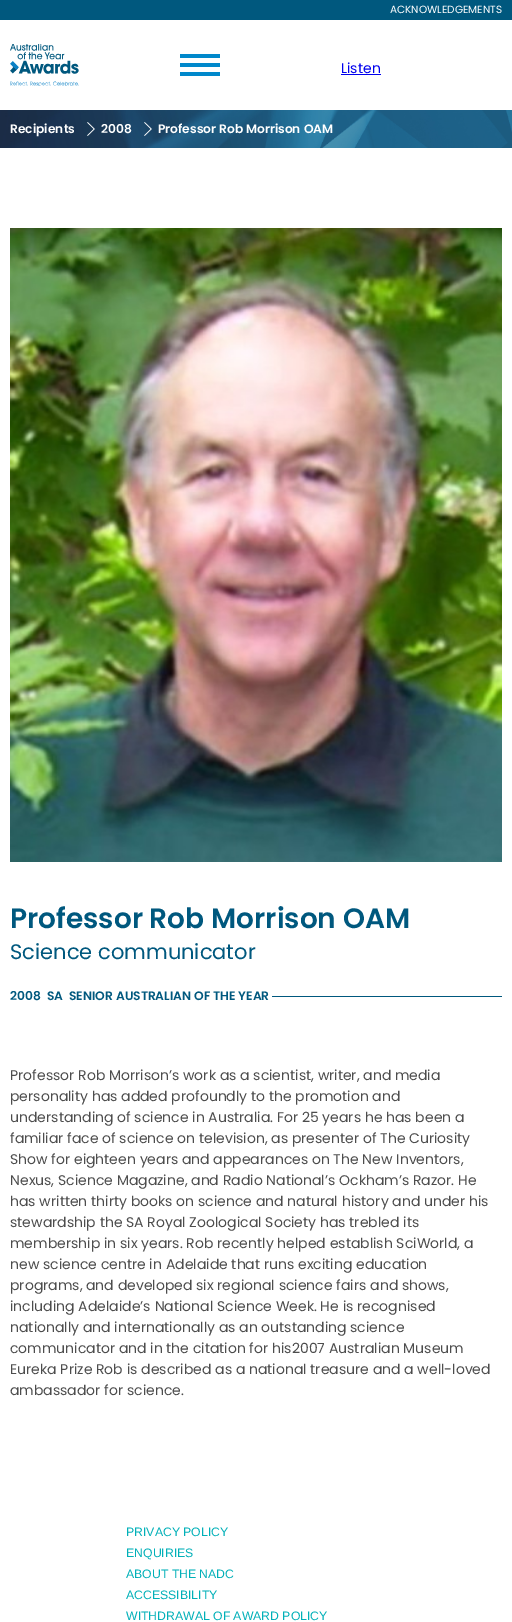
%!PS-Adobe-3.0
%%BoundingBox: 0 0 512 1622
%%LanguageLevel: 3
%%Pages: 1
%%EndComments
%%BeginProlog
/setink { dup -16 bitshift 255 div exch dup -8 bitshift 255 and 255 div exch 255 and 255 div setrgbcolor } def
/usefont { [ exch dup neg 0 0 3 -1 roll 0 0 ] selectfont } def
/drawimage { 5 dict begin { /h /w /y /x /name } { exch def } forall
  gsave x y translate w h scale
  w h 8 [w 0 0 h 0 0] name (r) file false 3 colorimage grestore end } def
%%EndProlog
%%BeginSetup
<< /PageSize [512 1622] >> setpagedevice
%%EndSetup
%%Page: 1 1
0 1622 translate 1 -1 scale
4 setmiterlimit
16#FFFFFF setink
0 0 512 1622 rectfill
16#00587E setink
0 0 512 20 rectfill
/Poppins-Regular 10.5 usefont
16#FFFFFF setink
390 13 moveto (ACKNOWLEDGEMENTS) show
(img1.raw) 10 44 69 42 drawimage
[
    [180 63 40 4 16#0088CB]
    [180 54 40 4 16#0088CB]
    [180 72 40 4 16#0088CB]
] { aload pop setink rectfill } forall
/Poppins-Regular 14 usefont
16#0000EE setink
341 73 moveto (Listen) show
341 74 40 1 rectfill
(img2.raw) 0 110 512 38 drawimage
/Poppins-SemiBold 12.25 usefont
16#FFFFFF setink
10 133 moveto (Recipients) show
(img3.raw) 87 122 8 14 drawimage
101 133 moveto (2008) show
(img4.raw) 144 122 8 14 drawimage
158 133 moveto (Professor Rob Morrison OAM) show
(img5.raw) 10 228 492 634 drawimage
/Poppins-SemiBold 28 usefont
16#00587E setink
10 928 moveto (Professor Rob Morrison OAM) show
/Poppins-Regular 21 usefont
10 959 moveto (Science communicator) show
/Poppins-SemiBold 12.25 usefont
[
    [(2008) 10 1000]
    [(SA) 47 1000]
    [(SENIOR AUSTRALIAN OF THE YEAR) 69 1000]
] { aload pop moveto show } forall
272 996 230 1 rectfill
/Poppins-Regular 14 usefont
16#4D4D4D setink
[
    [(Professor Rob Morrison’s work as a scientist, writer, and media) 10 1080]
    [(personality has added profoundly to the promotion and) 10 1101]
    [(understanding of science in Australia. For 25 years he has been a) 10 1122]
    [(familiar face of science on television, as presenter of The Curiosity) 10 1143]
    [(Show for eighteen years and appearances on The New Inventors,) 10 1164]
    [(Nexus, Science Magazine, and Radio National’s Ockham’s Razor. He) 10 1185]
    [(has written thirty books on science and natural history and under his) 10 1206]
    [(stewardship the SA Royal Zoological Society has trebled its) 10 1227]
    [(membership in six years. Rob recently helped establish SciWorld, a) 10 1248]
    [(new science centre in Adelaide that runs exciting education) 10 1269]
    [(programs, and developed six regional science fairs and shows,) 10 1290]
    [(including Adelaide’s National Science Week. He is recognised) 10 1311]
    [(nationally and internationally as an outstanding science) 10 1332]
    [(communicator and in the citation for his2007 Australian Museum) 10 1353]
    [(Eureka Prize Rob is described as a national treasure and a well-loved) 10 1374]
    [(ambassador for science.) 10 1395]
] { aload pop moveto show } forall
/LiberationSans-Regular 12.25 usefont
16#00B0B8 setink
[
    [(PRIVACY POLICY) 126 1536]
    [(ENQUIRIES) 126 1557]
    [(ABOUT THE NADC) 126 1578]
    [(ACCESSIBILITY) 126 1599]
    [(WITHDRAWAL OF AWARD POLICY) 126 1620]
] { aload pop moveto show } forall
showpage
%%EOF
